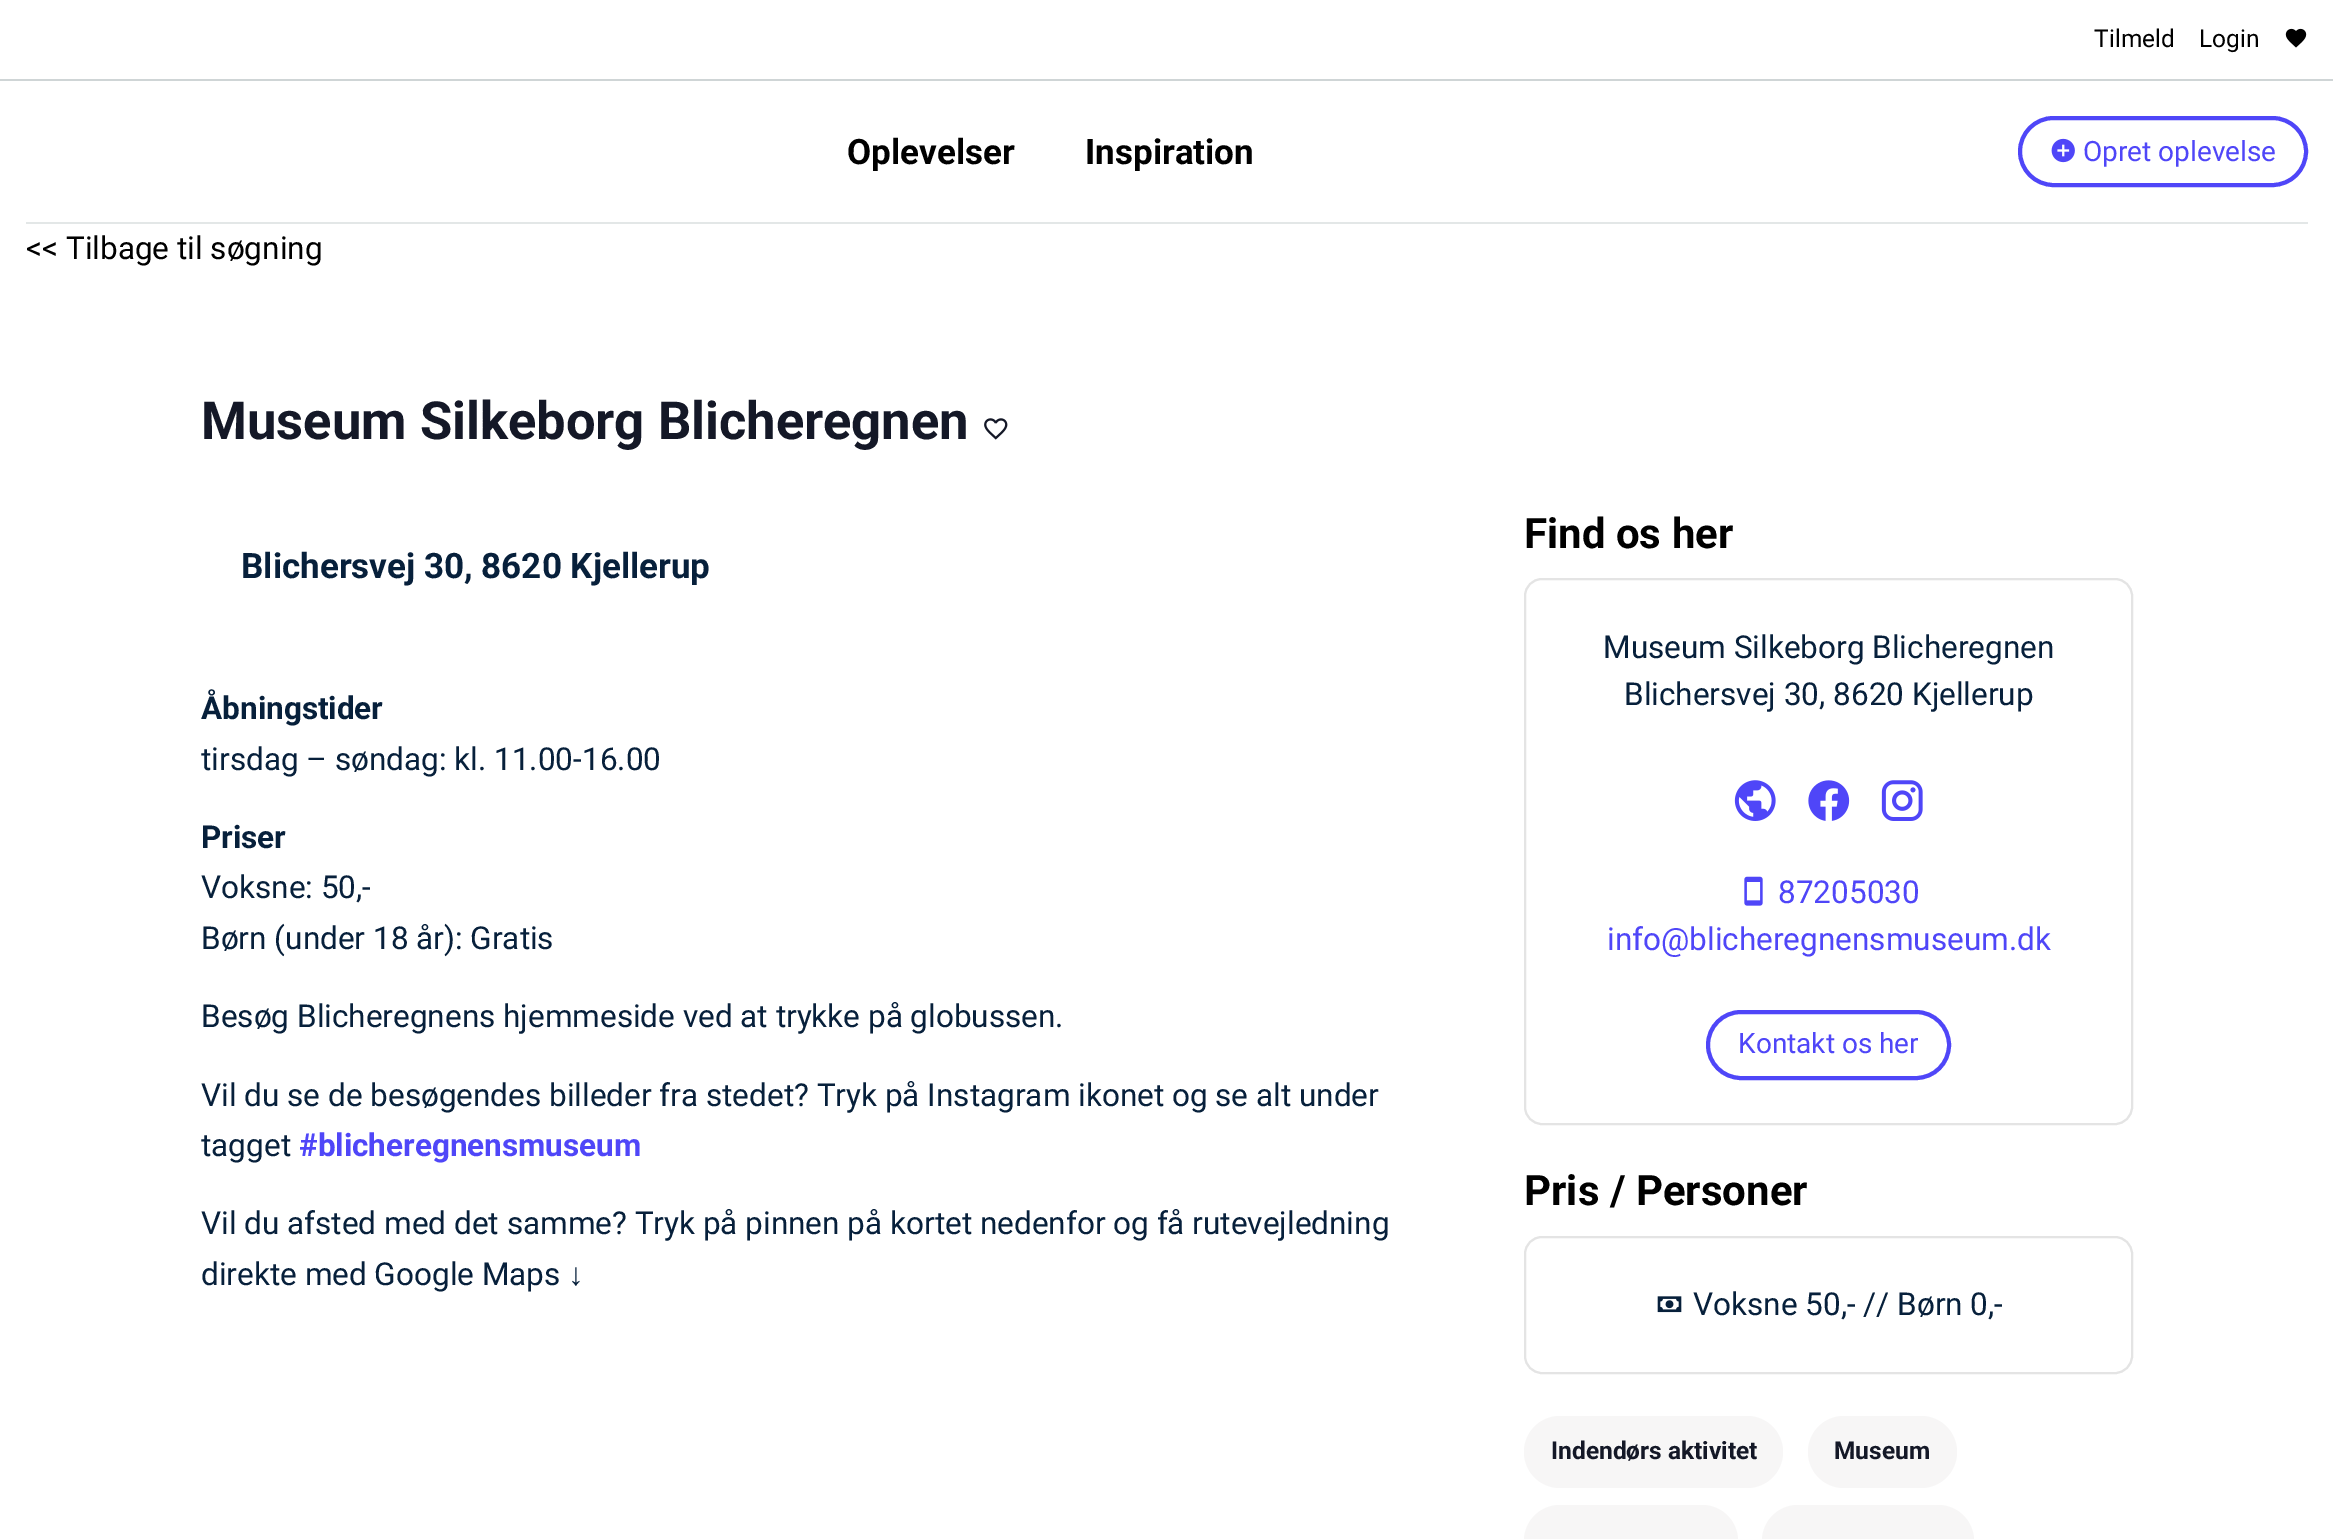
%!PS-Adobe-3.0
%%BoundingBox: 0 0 2333 1539
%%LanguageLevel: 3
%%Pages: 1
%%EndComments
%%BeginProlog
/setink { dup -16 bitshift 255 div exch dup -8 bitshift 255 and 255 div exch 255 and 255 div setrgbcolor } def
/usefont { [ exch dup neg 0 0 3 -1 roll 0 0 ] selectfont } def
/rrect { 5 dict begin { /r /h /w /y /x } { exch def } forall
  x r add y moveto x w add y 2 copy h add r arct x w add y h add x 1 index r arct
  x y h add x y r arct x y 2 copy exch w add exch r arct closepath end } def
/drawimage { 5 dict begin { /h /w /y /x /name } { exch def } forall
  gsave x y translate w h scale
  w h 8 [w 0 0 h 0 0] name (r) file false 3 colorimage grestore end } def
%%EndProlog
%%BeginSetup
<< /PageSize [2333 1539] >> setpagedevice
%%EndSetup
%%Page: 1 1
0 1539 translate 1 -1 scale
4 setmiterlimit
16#FFFFFF setink
0 0 2333 1539 rectfill
16#CFD5D6 setink
0 79 2333 2 rectfill
/Roboto-Regular 24.5 usefont
16#000000 setink
2094 47 moveto (Tilmeld) show
2199 47 moveto (Login) show
(img1.raw) 2285 28 22 20 drawimage
16#E3E7E7 setink
26 222 2282 2 rectfill
/Roboto-Bold 35 usefont
16#000000 setink
847 164 moveto (Oplevelser) show
1085 164 moveto (Inspiration) show
16#4F46F8 setink
4 setlinewidth
2020 118 286 67 33.5 rrect stroke
(img2.raw) 2051 138 24 25 drawimage
/Roboto-Regular 28 usefont
2083 161 moveto (Opret oplevelse) show
/Roboto-Regular 31.5 usefont
16#000000 setink
26 259 moveto (<< Tilbage til søgning) show
/Roboto-Bold 52.5 usefont
16#141827 setink
201 439 moveto (Museum Silkeborg Blicheregnen) show
(img3.raw) 984 418 24 22 drawimage
/Roboto-Bold 35 usefont
16#07203B setink
241 578 moveto (Blichersvej 30, 8620 Kjellerup) show
/Roboto-Bold 31.5 usefont
201 719 moveto (Åbningstider) show
/Roboto-Regular 31.5 usefont
201 770 moveto (tirsdag – søndag: kl. 11.00-16.00) show
/Roboto-Bold 31.5 usefont
201 848 moveto (Priser) show
/Roboto-Regular 31.5 usefont
[
    [(Voksne: 50,-) 201 898]
    [(Børn \(under 18 år\): Gratis) 201 949]
    [(Besøg Blicheregnens hjemmeside ved at trykke på globussen.) 201 1027]
    [(Vil du se de besøgendes billeder fra stedet? Tryk på Instagram ikonet og se alt under) 201 1106]
    [(tagget) 201 1156]
] { aload pop moveto show } forall
/Roboto-Bold 31.5 usefont
16#4F46F8 setink
299 1156 moveto (#blicheregnensmuseum) show
/Roboto-Regular 31.5 usefont
16#07203B setink
201 1234 moveto (Vil du afsted med det samme? Tryk på pinnen på kortet nedenfor og få rutevejledning) show
201 1285 moveto (direkte med Google Maps) show
/LiberationSerif-Regular 31.5 usefont
568 1285 moveto (↓) show
/Roboto-Bold 42 usefont
16#000000 setink
1524 548 moveto (Find os her) show
16#E4E4E4 setink
2 setlinewidth
1525 579 607 545 17 rrect stroke
/Roboto-Regular 31.5 usefont
16#07203B setink
1603 658 moveto (Museum Silkeborg Blicheregnen) show
1624 705 moveto (Blichersvej 30, 8620 Kjellerup) show
(img4.raw) 1734 780 42 41 drawimage
(img5.raw) 1808 780 42 41 drawimage
(img6.raw) 1881 780 42 41 drawimage
(img7.raw) 1744 876 19 30 drawimage
16#4F46F8 setink
1778 903 moveto (87205030) show
1607 950 moveto (info@blicheregnensmuseum.dk) show
4 setlinewidth
1708 1012 241 66 33 rrect stroke
/Roboto-Regular 28 usefont
1738 1053 moveto (Kontakt os her) show
/Roboto-Bold 42 usefont
16#000000 setink
1524 1205 moveto (Pris / Personer) show
16#E4E4E4 setink
2 setlinewidth
1525 1237 607 136 17 rrect stroke
(img8.raw) 1657 1296 25 17 drawimage
/Roboto-Regular 31.5 usefont
16#07203B setink
1693 1315 moveto (Voksne 50,- // Børn 0,-) show
16#F7F6F6 setink
1524 1416 259 72 36 rrect fill
/Roboto-Bold 24.5 usefont
16#141827 setink
1551 1459 moveto (Indendørs aktivitet) show
16#F7F6F6 setink
1808 1416 149 72 36 rrect fill
16#141827 setink
1834 1459 moveto (Museum) show
16#F7F6F6 setink
1524 1505 214 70 36 rrect fill
1762 1505 212 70 36 rrect fill
showpage
%%EOF
